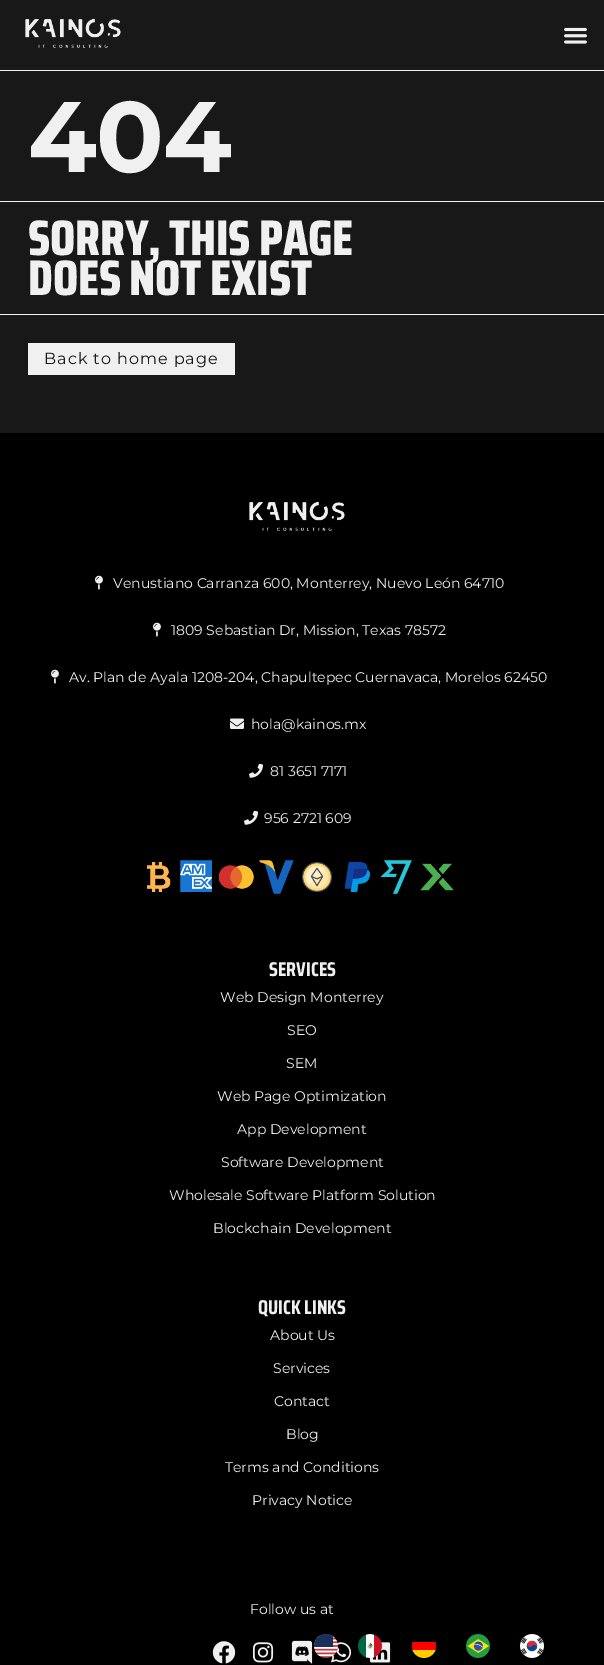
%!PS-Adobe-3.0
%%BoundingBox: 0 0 604 1665
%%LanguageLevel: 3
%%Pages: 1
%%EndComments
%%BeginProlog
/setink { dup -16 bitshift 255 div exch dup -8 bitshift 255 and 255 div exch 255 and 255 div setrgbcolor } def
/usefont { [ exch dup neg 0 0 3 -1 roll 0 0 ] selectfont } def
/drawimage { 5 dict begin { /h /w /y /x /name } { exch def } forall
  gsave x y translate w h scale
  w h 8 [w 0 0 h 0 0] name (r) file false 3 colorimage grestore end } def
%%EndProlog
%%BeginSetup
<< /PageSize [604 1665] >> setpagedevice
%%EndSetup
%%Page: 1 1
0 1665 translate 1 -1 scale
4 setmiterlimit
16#181818 setink
0 0 604 1665 rectfill
16#F0F0F0 setink
0 70 604 1 rectfill
(img1.raw) 25 18 96 30 drawimage
(img2.raw) 564 27 23 17 drawimage
/Montserrat-Bold 100 usefont
28 172 moveto -1 0 (404) ashow
0 201 604 1 rectfill
0 314 604 1 rectfill
/SairaCondensed-ExtraBold 50 usefont
28 255 moveto -0.25 0 (SORRY, THIS PAGE) ashow
28 295 moveto -0.25 0 (DOES NOT EXIST) ashow
28 343 207 32 rectfill
/Montserrat-Regular 16 usefont
16#181818 setink
44 364 moveto 1 0 (Back to home page) ashow
16#000000 setink
0 433 604 1232 rectfill
(img3.raw) 249 501 96 30 drawimage
(img4.raw) 95 575 8 15 drawimage
/Montserrat-Regular 14 usefont
16#F0F0F0 setink
113 588 moveto (Venustiano Carranza 600, Monterrey, Nuevo León 64710) show
(img4.raw) 153 622 8 15 drawimage
171 635 moveto (1809 Sebastian Dr, Mission, Texas 78572) show
(img4.raw) 51 669 8 15 drawimage
69 682 moveto (Av. Plan de Ayala 1208-204, Chapultepec Cuernavaca, Morelos 62450) show
(img5.raw) 230 718 14 11 drawimage
251 729 moveto (hola@kainos.mx) show
(img6.raw) 249 763 14 15 drawimage
270 776 moveto (81 3651 7171) show
(img6.raw) 244 810 14 15 drawimage
264 823 moveto (956 2721 609) show
(img7.raw) 147 862 24 30 drawimage
(img8.raw) 180 860 32 32 drawimage
(img9.raw) 218 865 36 24 drawimage
(img10.raw) 259 860 35 34 drawimage
(img11.raw) 302 862 30 30 drawimage
(img12.raw) 344 862 27 30 drawimage
(img13.raw) 380 860 32 34 drawimage
(img14.raw) 420 863 34 28 drawimage
/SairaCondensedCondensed-Bold 20 usefont
269 976 moveto (SERVICES) show
/Montserrat-Regular 14 usefont
[
    [(Web Design Monterrey) 220 1002]
    [(SEO) 287 1035]
    [(SEM) 286 1068]
    [(Web Page Optimization) 217 1101]
    [(App Development) 237 1134]
    [(Software Development) 221 1167]
    [(Wholesale Software Platform Solution) 169 1200]
    [(Blockchain Development) 213 1233]
] { aload pop moveto show } forall
/SairaCondensedCondensed-Bold 20 usefont
258 1314 moveto (QUICK LINKS) show
/Montserrat-Regular 14 usefont
[
    [(About Us) 270 1340]
    [(Services) 273 1373]
    [(Contact) 274 1406]
    [(Blog) 286 1439]
    [(Terms and Conditions) 225 1472]
    [(Privacy Notice) 252 1505]
    [(Follow us at) 250 1614]
] { aload pop moveto show } forall
(img15.raw) 212 1641 24 23 drawimage
(img16.raw) 252 1642 22 21 drawimage
(img17.raw) 291 1640 22 24 drawimage
(img18.raw) 331 1642 21 21 drawimage
(img19.raw) 369 1642 22 21 drawimage
(img20.raw) 314 1634 24 24 drawimage
(img21.raw) 358 1634 24 24 drawimage
16#FFCC00 setink
435.5 1650 moveto 431.5 1660.5 416.5 1660.5 412.5 1650 curveto closepath fill
16#FF0000 setink
412.5 1650 moveto 412 1647.5 412 1644.5 412.5 1642 curveto 435.5 1642 lineto 436 1644.5 436 1647.5 435.5 1650 curveto closepath fill
(img22.raw) 466 1634 24 24 drawimage
(img23.raw) 520 1634 24 24 drawimage
showpage
%%EOF
